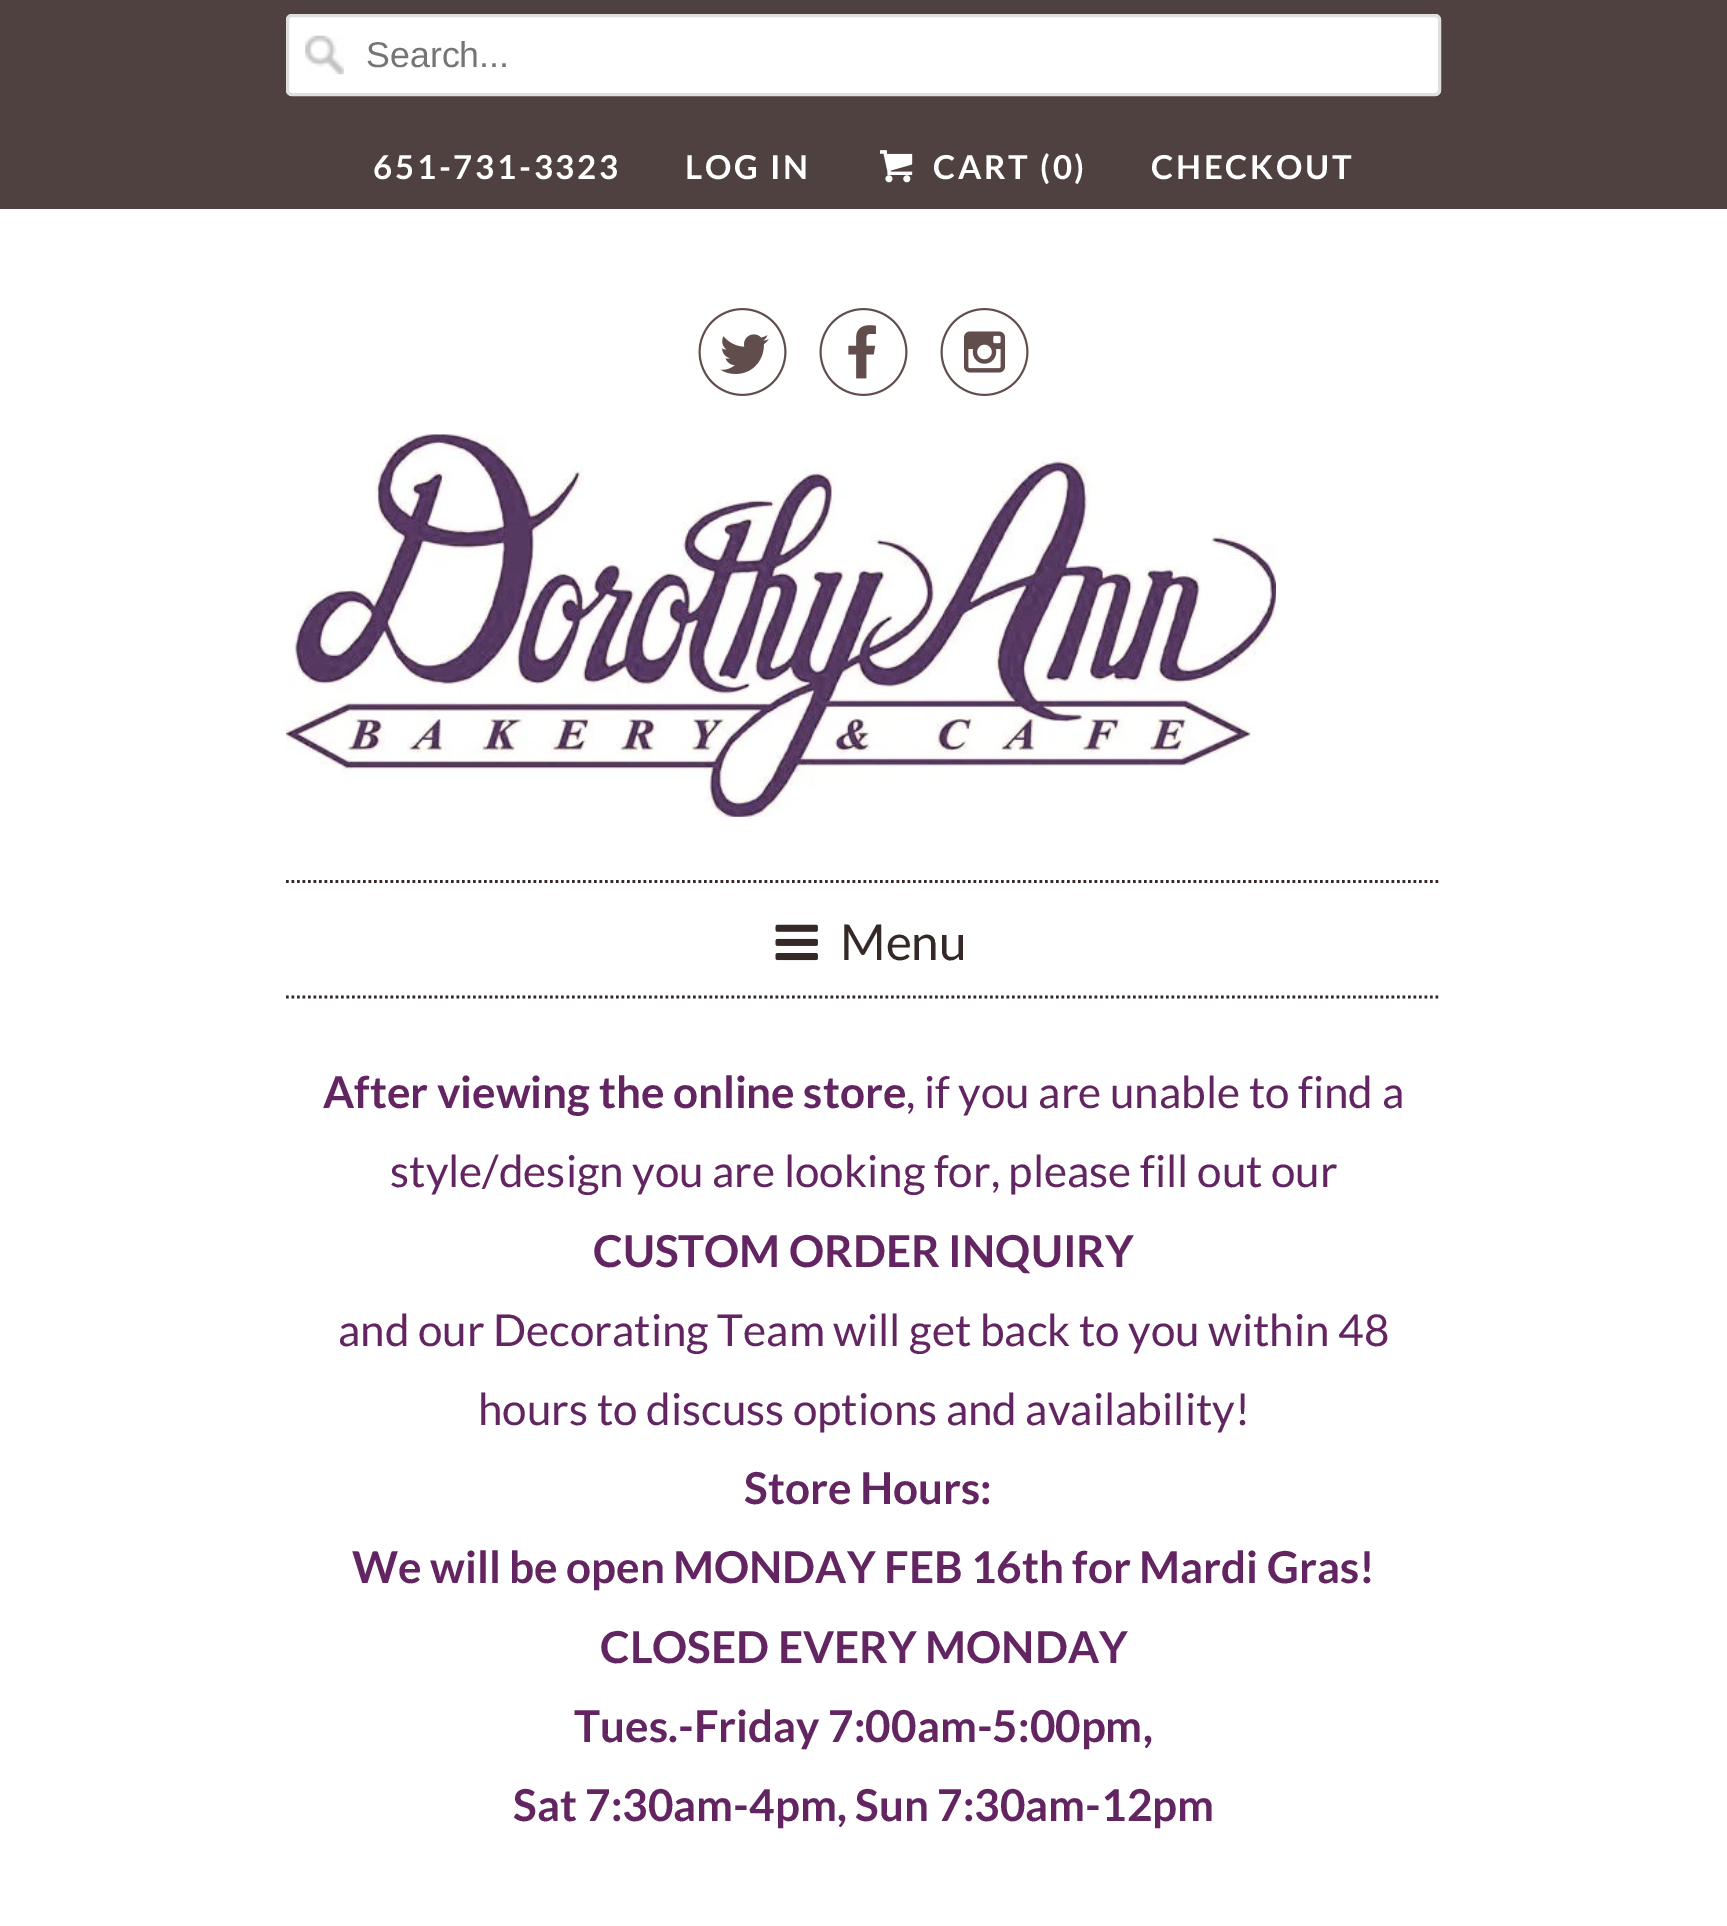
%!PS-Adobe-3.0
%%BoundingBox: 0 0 1727 1926
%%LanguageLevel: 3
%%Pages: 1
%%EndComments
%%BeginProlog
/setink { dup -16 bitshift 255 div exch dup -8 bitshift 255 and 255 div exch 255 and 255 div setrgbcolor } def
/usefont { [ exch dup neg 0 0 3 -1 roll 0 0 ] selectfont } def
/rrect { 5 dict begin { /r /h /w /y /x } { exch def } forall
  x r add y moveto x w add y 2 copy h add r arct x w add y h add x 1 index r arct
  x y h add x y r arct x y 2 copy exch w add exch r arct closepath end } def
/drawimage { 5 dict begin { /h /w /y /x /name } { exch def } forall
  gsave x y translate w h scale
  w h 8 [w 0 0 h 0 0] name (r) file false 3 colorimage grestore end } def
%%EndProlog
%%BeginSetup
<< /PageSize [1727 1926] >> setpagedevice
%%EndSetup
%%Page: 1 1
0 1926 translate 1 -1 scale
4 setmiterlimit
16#FFFFFF setink
0 0 1727 1926 rectfill
16#4F413F setink
0 0 1727 209 rectfill
16#FFFFFF setink
286 14 1155 82 6 rrect fill
(img1.raw) 305 35 39 40 drawimage
16#DFDFDF setink
3 setlinewidth
287.5 15.5 1152 79 4.5 rrect stroke
/LiberationSans-Regular 35.75 usefont
16#757575 setink
366 67 moveto (Search...) show
/Lato-Bold 33 usefont
16#FFFFFF setink
373 179 moveto 2.75 0 (651-731-3323) ashow
685 179 moveto 2.75 0 (LOG IN) ashow
(img2.raw) 880 150 33 33 drawimage
933 179 moveto 2.75 0 (CART \(0\)) ashow
1151 179 moveto 2.75 0 (CHECKOUT) ashow
(img3.raw) 698 308 89 88 drawimage
(img4.raw) 819 308 89 88 drawimage
(img5.raw) 940 308 89 88 drawimage
(img6.raw) 286 434 990 383 drawimage
16#352928 setink
2.8 setlinewidth
[2.75 2.75] 0 setdash
286 881.5 moveto 1441 881.5 lineto stroke
286 997 moveto 1441 997 lineto stroke
(img7.raw) 775 924 43 37 drawimage
/Lato-Regular 49.5 usefont
840 960 moveto (Menu) show
/Lato-Bold 44 usefont
16#632462 setink
323 1108 moveto (After viewing the online store) show
/Lato-Regular 44 usefont
906 1108 moveto (, if you are unable to find a) show
390 1187 moveto (style/design you are looking for, please fill out our) show
/Lato-Bold 44 usefont
593 1267 moveto (CUSTOM ORDER INQUIRY) show
/Lato-Regular 44 usefont
338 1346 moveto (and our Decorating Team will get back to you within 48) show
478 1425 moveto (hours to discuss options and availability!) show
/Lato-Bold 44 usefont
[
    [(Store Hours:) 744 1504]
    [(We will be open MONDAY FEB 16th for Mardi Gras!) 352 1583]
    [(CLOSED EVERY MONDAY) 600 1663]
    [(Tues.-Friday 7:00am-5:00pm,) 574 1742]
    [(Sat 7:30am-4pm, Sun 7:30am-12pm) 513 1821]
] { aload pop moveto show } forall
showpage
%%EOF
